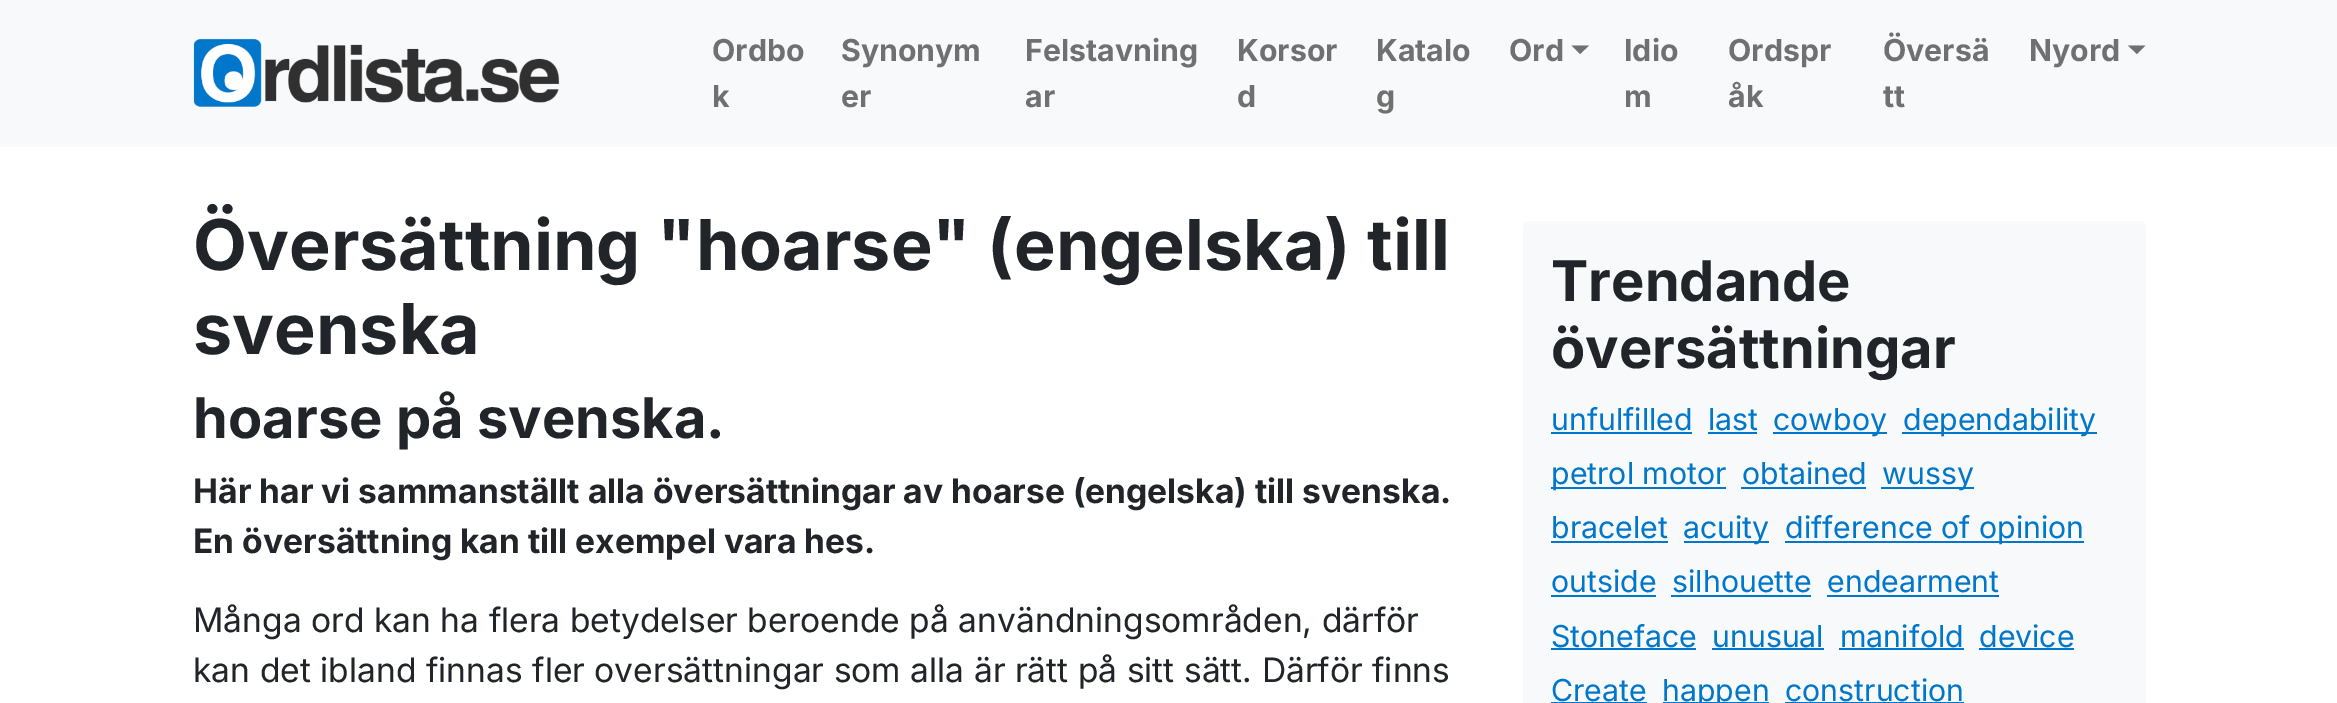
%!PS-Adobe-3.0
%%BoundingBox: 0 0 2337 703
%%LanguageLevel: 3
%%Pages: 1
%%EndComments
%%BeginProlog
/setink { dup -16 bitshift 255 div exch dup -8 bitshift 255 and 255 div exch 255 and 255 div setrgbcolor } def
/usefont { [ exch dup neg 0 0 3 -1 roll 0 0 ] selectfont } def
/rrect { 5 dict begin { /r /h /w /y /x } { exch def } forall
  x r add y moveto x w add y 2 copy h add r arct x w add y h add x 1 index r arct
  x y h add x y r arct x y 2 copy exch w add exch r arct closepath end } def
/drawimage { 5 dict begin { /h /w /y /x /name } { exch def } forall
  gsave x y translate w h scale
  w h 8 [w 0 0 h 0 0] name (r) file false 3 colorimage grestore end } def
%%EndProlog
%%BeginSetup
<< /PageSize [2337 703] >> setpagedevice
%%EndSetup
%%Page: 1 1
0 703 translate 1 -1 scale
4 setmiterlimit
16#FFFFFF setink
0 0 2337 703 rectfill
16#F8F9FA setink
0 0 2337 147 rectfill
(img1.raw) 193 38 367 69 drawimage
/Inter-Bold 30.25 usefont
16#707071 setink
[
    [(Ordbo) 712 61]
    [(k) 712 107]
    [(Synonym) 841 61]
    [(er) 841 107]
    [(Felstavning) 1025 61]
    [(ar) 1025 107]
    [(Korsor) 1237 61]
    [(d) 1237 107]
    [(Katalo) 1376 61]
    [(g) 1376 107]
    [(Ord) 1509 61]
] { aload pop moveto show } forall
1571.5 45.5 moveto 1589 45.5 lineto 1580 54 lineto closepath fill
[
    [(Idio) 1624 61]
    [(m) 1624 107]
    [(Ordspr) 1728 61]
    [(åk) 1728 107]
    [(Översä) 1883 61]
    [(tt) 1883 107]
    [(Nyord) 2029 61]
] { aload pop moveto show } forall
2128 45.5 moveto 2145.5 45.5 lineto 2137 54 lineto closepath fill
/Inter-Bold 70 usefont
16#212529 setink
193 270 moveto (Översättning "hoarse" \(engelska\) till) show
193 354 moveto (svenska) show
/Inter-Bold 56 usefont
193 438 moveto (hoarse på svenska.) show
/Inter-Bold 33.6 usefont
193 503 moveto (Här har vi sammanställt alla översättningar av hoarse \(engelska\) till svenska.) show
193 553 moveto (En översättning kan till exempel vara hes.) show
/Inter-Regular 33.6 usefont
193 632 moveto (Många ord kan ha flera betydelser beroende på användningsområden, därför) show
193 682 moveto (kan det ibland finnas fler oversättningar som alla är rätt på sitt sätt. Därför finns) show
16#F8F9FA setink
1523 221 623 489 7 rrect fill
/Inter-Bold 56 usefont
16#212529 setink
1551 301 moveto (Trendande) show
1551 368 moveto (översättningar) show
/Inter-Regular 30.25 usefont
16#0077CB setink
1551 430 moveto (unfulfilled) show
1551 432 141 2 rectfill
1708 430 moveto (last) show
1708 432 49 2 rectfill
1773 432 114 2 rectfill
1773 430 moveto (cowboy) show
1902 432 195 2 rectfill
1903 430 moveto (dependability) show
1551 487 175 2 rectfill
1551 484 moveto (petrol motor) show
1742 484 moveto (obtained) show
1741 487 125 2 rectfill
1881 487 93 2 rectfill
1882 484 moveto (wussy) show
1551 538 moveto (bracelet) show
1551 541 117 2 rectfill
1684 541 85 2 rectfill
1683 538 moveto (acuity) show
1785 541 299 2 rectfill
1785 538 moveto (difference of opinion) show
1551 592 moveto (outside) show
1551 595 105 2 rectfill
1672 592 moveto (silhouette) show
1671 595 140 2 rectfill
1827 592 moveto (endearment) show
1827 595 172 2 rectfill
1551 647 moveto (Stoneface) show
1551 648 145 2 rectfill
1712 647 moveto (unusual) show
1712 648 112 2 rectfill
1840 647 moveto (manifold) show
1839 648 125 2 rectfill
1979 647 moveto (device) show
1979 648 95 2 rectfill
1551 701 moveto (Create) show
1551 702 96 1 rectfill
1663 702 106 1 rectfill
1662 701 moveto (happen) show
1785 701 moveto (construction) show
1785 702 179 1 rectfill
showpage
%%EOF
